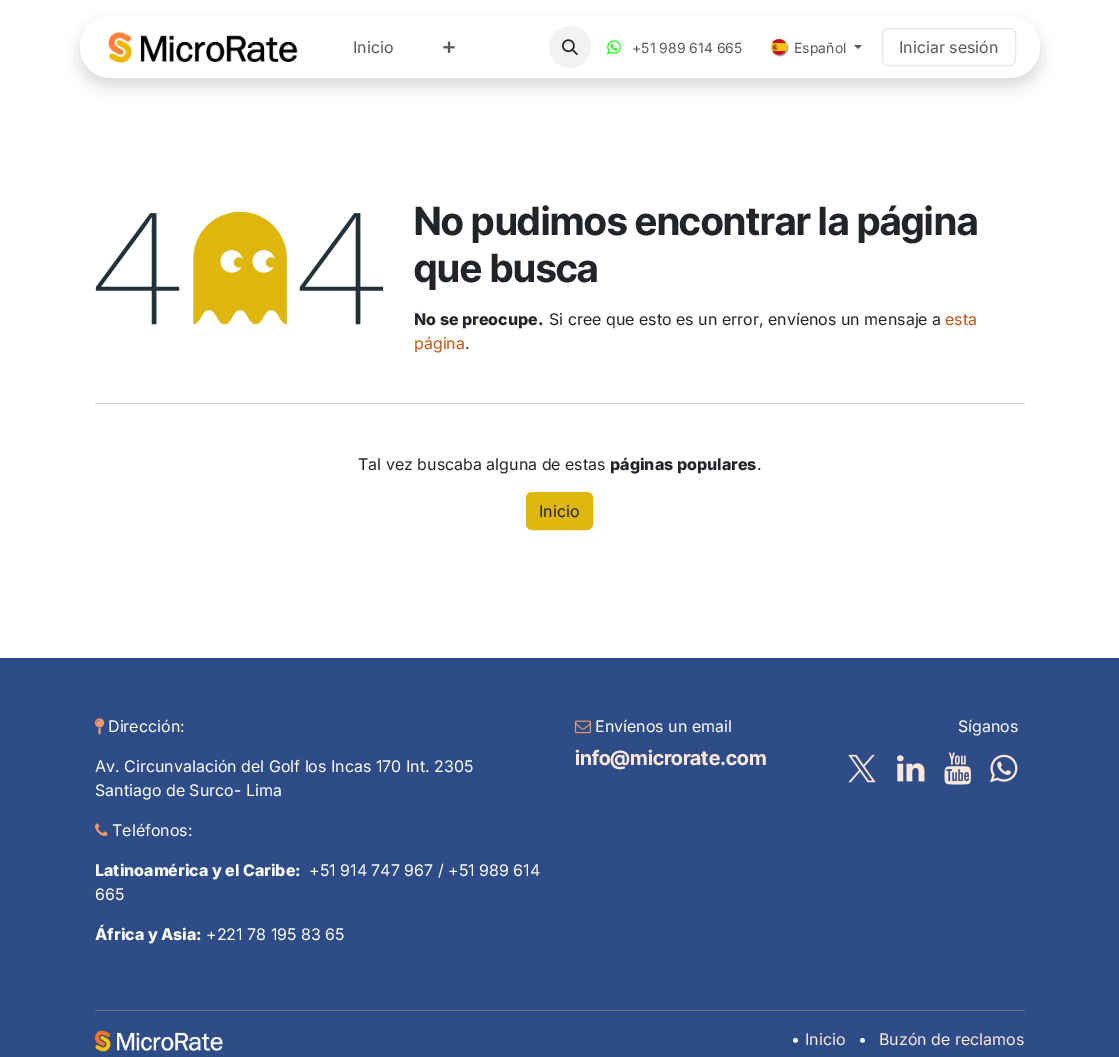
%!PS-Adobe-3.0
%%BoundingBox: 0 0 1119 1057
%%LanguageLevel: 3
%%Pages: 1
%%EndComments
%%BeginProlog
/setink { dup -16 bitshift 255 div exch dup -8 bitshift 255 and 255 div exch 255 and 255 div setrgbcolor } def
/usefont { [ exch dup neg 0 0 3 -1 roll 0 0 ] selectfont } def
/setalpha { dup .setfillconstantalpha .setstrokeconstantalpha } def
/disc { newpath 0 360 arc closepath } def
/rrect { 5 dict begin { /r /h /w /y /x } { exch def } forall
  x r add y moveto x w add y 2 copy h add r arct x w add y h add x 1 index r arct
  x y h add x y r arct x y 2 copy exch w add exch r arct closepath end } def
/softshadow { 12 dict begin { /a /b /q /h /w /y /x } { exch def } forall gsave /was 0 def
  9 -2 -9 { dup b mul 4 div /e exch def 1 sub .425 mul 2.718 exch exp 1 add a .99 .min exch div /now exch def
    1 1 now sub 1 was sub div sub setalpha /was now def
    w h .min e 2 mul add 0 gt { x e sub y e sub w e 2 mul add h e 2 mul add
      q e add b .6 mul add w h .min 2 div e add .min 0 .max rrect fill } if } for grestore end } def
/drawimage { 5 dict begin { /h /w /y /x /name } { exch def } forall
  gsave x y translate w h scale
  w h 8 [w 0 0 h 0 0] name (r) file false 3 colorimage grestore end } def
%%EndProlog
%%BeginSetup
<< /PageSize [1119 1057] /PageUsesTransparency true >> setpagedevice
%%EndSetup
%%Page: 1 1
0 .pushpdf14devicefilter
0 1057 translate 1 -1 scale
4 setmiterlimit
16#FFFFFF setink
0 0 1119 1057 rectfill
16#000000 setink
80 24 960 62 31 8 0.15 softshadow
16#FFFFFF setink
80 16 960 62 31 rrect fill
(img1.raw) 108 32 190 31 drawimage
/Inter-Regular 16 usefont
16#595959 setink
353 53 moveto (Inicio) show
(img2.raw) 443 41 12 12 drawimage
16#F2F2F2 setink
570 47 21 disc fill
(img3.raw) 562 39 16 17 drawimage
(img4.raw) 607 40 14 15 drawimage
/Inter-Regular 14 usefont
16#595959 setink
632 53 moveto (+51 989 614 665) show
16#000000 setink
772 40 16 16 8 0.5 0.43 softshadow
(img5.raw) 771 39 16 16 drawimage
16#595959 setink
794 53 moveto (Español) show
854 45 moveto 862 45 lineto 858 49 lineto closepath fill
16#E6E6E6 setink
882.5 28.5 133 37 5.5 rrect stroke
/Inter-Regular 16 usefont
16#595959 setink
899 53 moveto (Iniciar sesión) show
(img6.raw) 95 212 289 113 drawimage
/InterTight-Bold 38.75 usefont
16#212529 setink
414 235 moveto (No pudimos encontrar la página) show
414 282 moveto (que busca) show
/Inter-ExtraBold 16 usefont
414 325 moveto (No se preocupe.) show
/Inter-Regular 16 usefont
549 325 moveto (Si cree que esto es un error, envíenos un mensaje a) show
16#C55412 setink
945 325 moveto (esta) show
414 349 moveto (página) show
16#212529 setink
465 349 moveto (.) show
16#CED4DA setink
95 403 930 1 rectfill
16#212529 setink
358 470 moveto (Tal vez buscaba alguna de estas) show
/Inter-ExtraBold 16 usefont
610 470 moveto (páginas populares) show
/Inter-Regular 16 usefont
757 470 moveto (.) show
16#DEB60D setink
526.5 492.5 66 37 5.5 rrect gsave fill grestore
stroke
16#212529 setink
539 517 moveto (Inicio) show
16#2E4C87 setink
0 658 1119 399 rectfill
(img7.raw) 95 718 10 17 drawimage
16#FFFFFF setink
[
    [(Dirección:) 108 732]
    [(Av. Circunvalación del Golf los Incas 170 Int. 2305) 95 772]
    [(Santiago de Surco- Lima) 95 796]
] { aload pop moveto show } forall
(img8.raw) 95 823 13 13 drawimage
112 836 moveto (Teléfonos:) show
/Inter-ExtraBold 16 usefont
95 876 moveto (Latinoamérica y el Caribe:) show
/Inter-Regular 16 usefont
309 876 moveto (+51 914 747 967 / +51 989 614) show
95 900 moveto (665) show
/Inter-ExtraBold 16 usefont
95 940 moveto (África y Asia:) show
/Inter-Regular 16 usefont
206 940 moveto (+221 78 195 83 65) show
(img9.raw) 575 720 16 14 drawimage
595 732 moveto (Envíenos un email) show
/InterTight-Bold 20 usefont
16#FCE7DB setink
575 765 moveto (info@microrate.com) show
/Inter-Regular 16 usefont
16#FFFFFF setink
958 732 moveto (Síganos) show
(img10.raw) 848 754 28 29 drawimage
(img11.raw) 897 755 28 27 drawimage
(img12.raw) 944 752 27 33 drawimage
(img13.raw) 990 754 28 29 drawimage
16#6C757D setink
95 1010 930 1 rectfill
(img14.raw) 95 1030 128 22 drawimage
16#FFFFFF setink
791 1045 moveto (•) show
16#FCE7DB setink
805 1045 moveto (Inicio) show
16#FFFFFF setink
858 1045 moveto (•) show
16#FCE7DB setink
879 1045 moveto (Buzón de reclamos) show
.poppdf14devicefilter showpage
%%EOF
